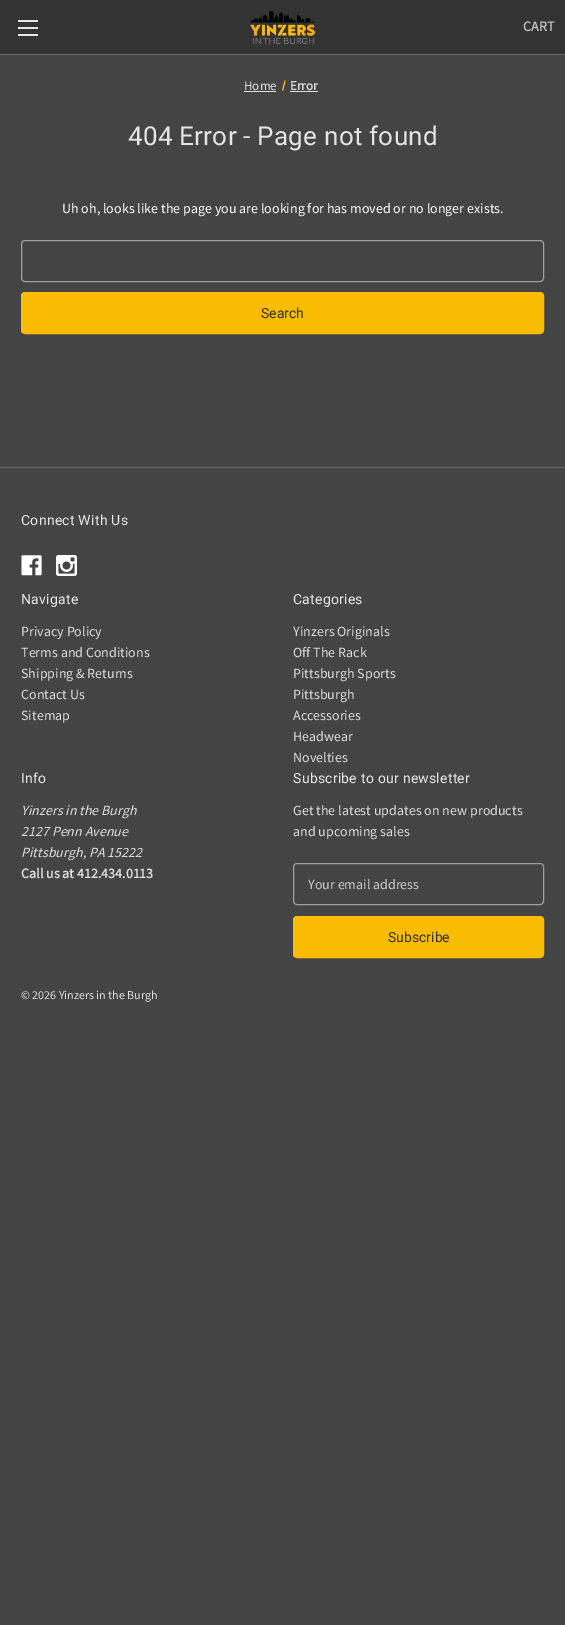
%!PS-Adobe-3.0
%%BoundingBox: 0 0 565 1625
%%LanguageLevel: 3
%%Pages: 1
%%EndComments
%%BeginProlog
/setink { dup -16 bitshift 255 div exch dup -8 bitshift 255 and 255 div exch 255 and 255 div setrgbcolor } def
/usefont { [ exch dup neg 0 0 3 -1 roll 0 0 ] selectfont } def
/rrect { 5 dict begin { /r /h /w /y /x } { exch def } forall
  x r add y moveto x w add y 2 copy h add r arct x w add y h add x 1 index r arct
  x y h add x y r arct x y 2 copy exch w add exch r arct closepath end } def
/drawimage { 5 dict begin { /h /w /y /x /name } { exch def } forall
  gsave x y translate w h scale
  w h 8 [w 0 0 h 0 0] name (r) file false 3 colorimage grestore end } def
%%EndProlog
%%BeginSetup
<< /PageSize [565 1625] >> setpagedevice
%%EndSetup
%%Page: 1 1
0 1625 translate 1 -1 scale
4 setmiterlimit
16#444444 setink
0 0 565 1625 rectfill
[
    [0 0 565 54 16#333333]
    [0 54 565 1 16#666666]
    [18 27 20 2 16#E5E5E5]
    [18 20 20 2 16#E5E5E5]
    [18 34 20 2 16#E5E5E5]
] { aload pop setink rectfill } forall
(img1.raw) 250 11 65 33 drawimage
/SourceSansPro-Bold 14 usefont
16#BBBBBB setink
523 31 moveto (CART) show
/SourceSansPro-Regular 13 usefont
16#DDDDDD setink
244 90 moveto (Home) show
244 91 32 1 rectfill
16#FABC00 setink
284.5 80.5 moveto 285.5 81 lineto 283 91 lineto 282 90.5 lineto closepath fill
/SourceSansPro-Bold 13 usefont
16#DDDDDD setink
290 90 moveto (Error) show
290 91 28 1 rectfill
/Roboto-Regular 26 usefont
16#E5E5E5 setink
128 145 moveto 0.25 0 (404 Error - Page not found) ashow
/SourceSansPro-Regular 14 usefont
16#FFFFFF setink
62 213 moveto (Uh oh, looks like the page you are looking for has moved or no longer exists.) show
16#9F9F9F setink
21.5 240.5 522 41 3.5 rrect stroke
16#FABC00 setink
21.5 292.5 522 41 3.5 rrect gsave fill grestore
stroke
/Roboto-Regular 14 usefont
16#333333 setink
261 318 moveto (Search) show
16#666666 setink
0 467 565 1 rectfill
16#E5E5E5 setink
21 525 moveto 0.25 0 (Connect With Us) ashow
(img2.raw) 21 555 21 21 drawimage
(img3.raw) 56 555 21 21 drawimage
21 604 moveto 0.25 0 (Navigate) ashow
/SourceSansPro-Regular 14 usefont
16#DDDDDD setink
[
    [(Privacy Policy) 21 636]
    [(Terms and Conditions) 21 657]
    [(Shipping & Returns) 21 678]
    [(Contact Us) 21 699]
    [(Sitemap) 21 720]
] { aload pop moveto show } forall
/Roboto-Regular 14 usefont
16#E5E5E5 setink
293 604 moveto 0.25 0 (Categories) ashow
/SourceSansPro-Regular 14 usefont
16#DDDDDD setink
[
    [(Yinzers Originals) 293 636]
    [(Off The Rack) 293 657]
    [(Pittsburgh Sports) 293 678]
    [(Pittsburgh) 293 699]
    [(Accessories) 293 720]
    [(Headwear) 293 741]
    [(Novelties) 293 762]
] { aload pop moveto show } forall
/Roboto-Regular 14 usefont
16#E5E5E5 setink
21 783 moveto 0.25 0 (Info) ashow
/SourceSansPro-Italic 14 usefont
16#DDDDDD setink
[
    [(Yinzers in the Burgh) 21 815]
    [(2127 Penn Avenue) 21 836]
    [(Pittsburgh, PA 15222) 21 857]
] { aload pop moveto show } forall
/SourceSansPro-Bold 14 usefont
21 878 moveto (Call us at 412.434.0113) show
/Roboto-Regular 14 usefont
16#E5E5E5 setink
293 783 moveto 0.25 0 (Subscribe to our newsletter) ashow
/SourceSansPro-Regular 14 usefont
16#DDDDDD setink
293 815 moveto (Get the latest updates on new products) show
293 836 moveto (and upcoming sales) show
16#9F9F9F setink
293.5 863.5 250 41 3.5 rrect stroke
16#CCCCCC setink
308 889 moveto (Your email address) show
16#FABC00 setink
293.5 916.5 250 41 3.5 rrect gsave fill grestore
stroke
/Roboto-Regular 14 usefont
16#333333 setink
388 942 moveto (Subscribe) show
/SourceSansPro-Regular 12 usefont
16#DDDDDD setink
21 999 moveto (© 2026 Yinzers in the Burgh) show
showpage
%%EOF
